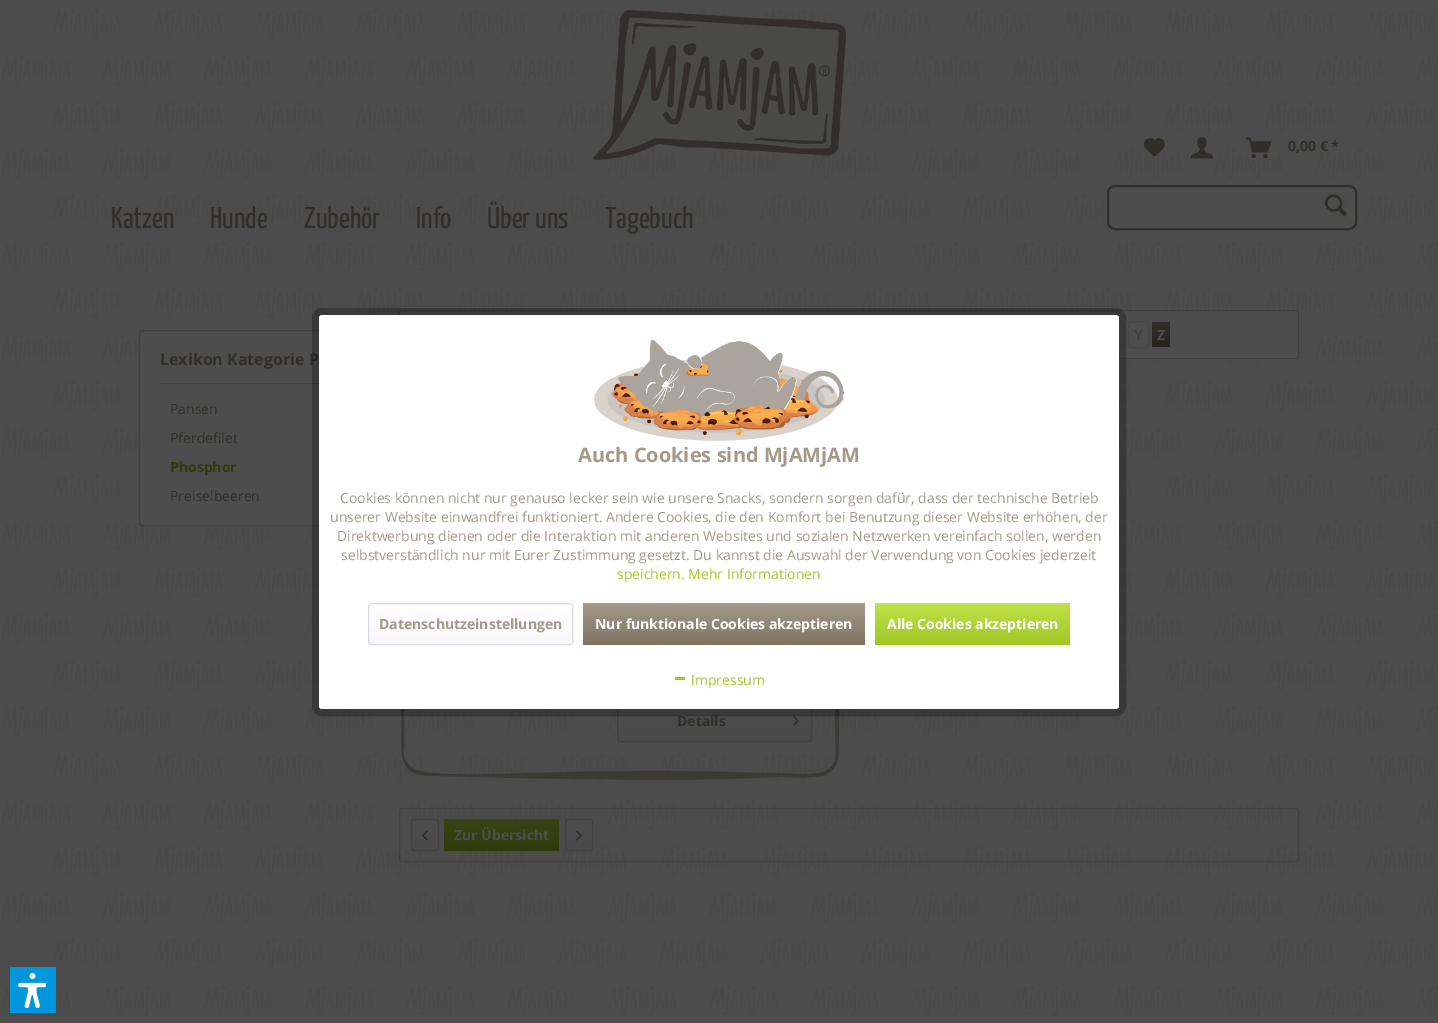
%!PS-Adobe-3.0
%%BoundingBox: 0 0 1438 1023
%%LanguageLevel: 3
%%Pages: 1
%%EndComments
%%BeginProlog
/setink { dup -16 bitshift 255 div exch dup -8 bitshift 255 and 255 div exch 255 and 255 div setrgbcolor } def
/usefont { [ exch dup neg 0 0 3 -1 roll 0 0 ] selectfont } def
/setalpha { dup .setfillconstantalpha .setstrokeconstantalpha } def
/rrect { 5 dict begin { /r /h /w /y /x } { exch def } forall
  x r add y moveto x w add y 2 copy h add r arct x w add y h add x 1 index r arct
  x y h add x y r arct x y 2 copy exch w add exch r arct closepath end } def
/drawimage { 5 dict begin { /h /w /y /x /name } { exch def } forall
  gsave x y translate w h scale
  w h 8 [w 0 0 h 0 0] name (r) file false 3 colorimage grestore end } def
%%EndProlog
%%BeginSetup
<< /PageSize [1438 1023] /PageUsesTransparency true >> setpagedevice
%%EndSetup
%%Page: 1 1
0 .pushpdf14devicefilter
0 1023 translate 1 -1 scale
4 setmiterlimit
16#4D4D4D setink
0 0 1438 1023 rectfill
(img1.raw) 1 8 1437 1008 drawimage
(img2.raw) 593 10 253 150 drawimage
(img3.raw) 1144 138 21 19 drawimage
(img4.raw) 1191 137 22 22 drawimage
(img5.raw) 1246 137 26 22 drawimage
/OpenSans-Bold 14 usefont
16#312E29 setink
1288 151 moveto (0,00 € *) show
16#4D4D4D setink
1107 185 250 45 3 rrect fill
16#312E29 setink
2 setlinewidth
1108 186 248 43 7 rrect stroke
(img6.raw) 1325 194 22 23 drawimage
/YanoneKaffeesatz-ExtraLight 30 usefont
[
    [(Katzen) 111 228]
    [(Hunde) 210 228]
    [(Zubehör) 304 228]
    [(Info) 416 228]
    [(Über uns) 487 228]
    [(Tagebuch) 605 228]
] { aload pop moveto show } forall
16#4D4D4D setink
139.5 330.5 229 195 2.5 rrect gsave fill grestore
16#414145 setink
1 setlinewidth
stroke
160 383 159 1 rectfill
/OpenSans-Bold 16 usefont
16#312E29 setink
160 365 moveto (Lexikon Kategorie P) show
/OpenSans-Regular 14 usefont
170 414 moveto (Pansen) show
170 443 moveto (Pferdefilet) show
/OpenSans-Bold 14 usefont
16#303B0B setink
170 472 moveto (Phosphor) show
/OpenSans-Regular 14 usefont
16#312E29 setink
170 501 moveto (Preiselbeeren) show
16#4D4D4D setink
399.5 310.5 899 48 2.5 rrect gsave fill grestore
16#414145 setink
stroke
16#474749 setink
1103.5 321.5 20 26 2.5 rrect stroke
1128.5 321.5 20 26 2.5 rrect stroke
/OpenSans-Bold 14 usefont
16#3F3E3B setink
1134 340 moveto (Y) show
gsave 1152 322 18 25 3 rrect clip newpath
<< /ShadingType 2 /ColorSpace /DeviceRGB /Coords [1161 322 1161 347] /Extend [true true] /Function << /FunctionType 2 /Domain [0 1] /C0 [0.192 0.18 0.161] /C1 [0.149 0.137 0.114] /N 1 >> >> shfill grestore
16#4D4D4D setink
1157 340 moveto (Z) show
(img7.raw) 401 709 439 71 drawimage
gsave 618 701 193 40 2 rrect clip newpath
<< /ShadingType 2 /ColorSpace /DeviceRGB /Coords [715 701 715 741] /Extend [true true] /Function << /FunctionType 2 /Domain [0 1] /C0 [0.302 0.302 0.302] /C1 [0.29 0.29 0.294] /N 1 >> >> shfill grestore
16#414145 setink
617.5 700.5 194 41 2.5 rrect stroke
16#312E29 setink
677 726 moveto (Details) show
(img8.raw) 793 715 6 11 drawimage
16#414145 setink
399.5 808.5 899 53 2.5 rrect stroke
gsave 412 820 26 30 2 rrect clip newpath
<< /ShadingType 2 /ColorSpace /DeviceRGB /Coords [425 820 425 850] /Extend [true true] /Function << /FunctionType 2 /Domain [0 1] /C0 [0.302 0.302 0.302] /C1 [0.29 0.29 0.294] /N 1 >> >> shfill grestore
411.5 819.5 27 31 2.5 rrect stroke
(img9.raw) 422 830 6 11 drawimage
gsave 444 819 115 32 3 rrect clip newpath
<< /ShadingType 2 /ColorSpace /DeviceRGB /Coords [502 819 502 851] /Extend [true true] /Function << /FunctionType 2 /Domain [0 1] /C0 [0.224 0.267 0.082] /C1 [0.188 0.231 0.043] /N 1 >> >> shfill grestore
16#4D4D4D setink
454 840 moveto (Zur Übersicht) show
gsave 566 820 26 30 2 rrect clip newpath
<< /ShadingType 2 /ColorSpace /DeviceRGB /Coords [579 820 579 850] /Extend [true true] /Function << /FunctionType 2 /Domain [0 1] /C0 [0.302 0.302 0.302] /C1 [0.29 0.29 0.294] /N 1 >> >> shfill grestore
16#414145 setink
565.5 819.5 27 31 2.5 rrect stroke
(img10.raw) 576 830 6 11 drawimage
0.25 setalpha
16#000000 setink
7 setlinewidth
315.5 311.5 807 401 6.5 rrect stroke
1 setalpha
16#FFFFFF setink
319 315 800 394 3 rrect fill
(img11.raw) 594 339 250 102 drawimage
/OpenSans-Bold 20 usefont
16#A49A88 setink
578 462 moveto (Auch Cookies sind MjAMjAM) show
/OpenSans-Regular 14 usefont
[
    [(Cookies können nicht nur genauso lecker sein wie unsere Snacks, sondern sorgen dafür, dass der technische Betrieb) 340 503]
    [(unserer Website einwandfrei funktioniert. Andere Cookies, die den Komfort bei Benutzung dieser Website erhöhen, der) 330 522]
    [(Direktwerbung dienen oder die Interaktion mit anderen Websites und sozialen Netzwerken vereinfach sollen, werden) 337 541]
    [(selbstverständlich nur mit Eurer Zustimmung gesetzt. Du kannst die Auswahl der Verwendung von Cookies jederzeit) 341 560]
] { aload pop moveto show } forall
16#A1C626 setink
617 579 moveto (speichern. Mehr Informationen) show
gsave 369 604 203 40 2 rrect clip newpath
<< /ShadingType 2 /ColorSpace /DeviceRGB /Coords [471 604 471 644] /Extend [true true] /Function << /FunctionType 2 /Domain [0 1] /C0 [1 1 1] /C1 [0.973 0.973 0.98] /N 1 >> >> shfill grestore
16#DADAE5 setink
1 setlinewidth
368.5 603.5 204 41 2.5 rrect stroke
/OpenSans-Bold 14 usefont
16#A49A88 setink
379 629 moveto (Datenschutzeinstellungen) show
gsave 583 603 282 42 3 rrect clip newpath
<< /ShadingType 2 /ColorSpace /DeviceRGB /Coords [724 603 724 645] /Extend [true true] /Function << /FunctionType 2 /Domain [0 1] /C0 [0.643 0.604 0.533] /C1 [0.498 0.455 0.38] /N 1 >> >> shfill grestore
16#FFFFFF setink
595 629 moveto (Nur funktionale Cookies akzeptieren) show
gsave 875 603 195 42 3 rrect clip newpath
<< /ShadingType 2 /ColorSpace /DeviceRGB /Coords [973 603 973 645] /Extend [true true] /Function << /FunctionType 2 /Domain [0 1] /C0 [0.745 0.886 0.278] /C1 [0.631 0.776 0.149] /N 1 >> >> shfill grestore
887 629 moveto (Alle Cookies akzeptieren) show
/OpenSans-Regular 14 usefont
16#A1C626 setink
691 685 moveto (Impressum) show
675 677 10 3 rectfill
16#0096DE setink
10 967 46 46 rectfill
(img12.raw) 18 973 28 35 drawimage
.poppdf14devicefilter showpage
%%EOF
